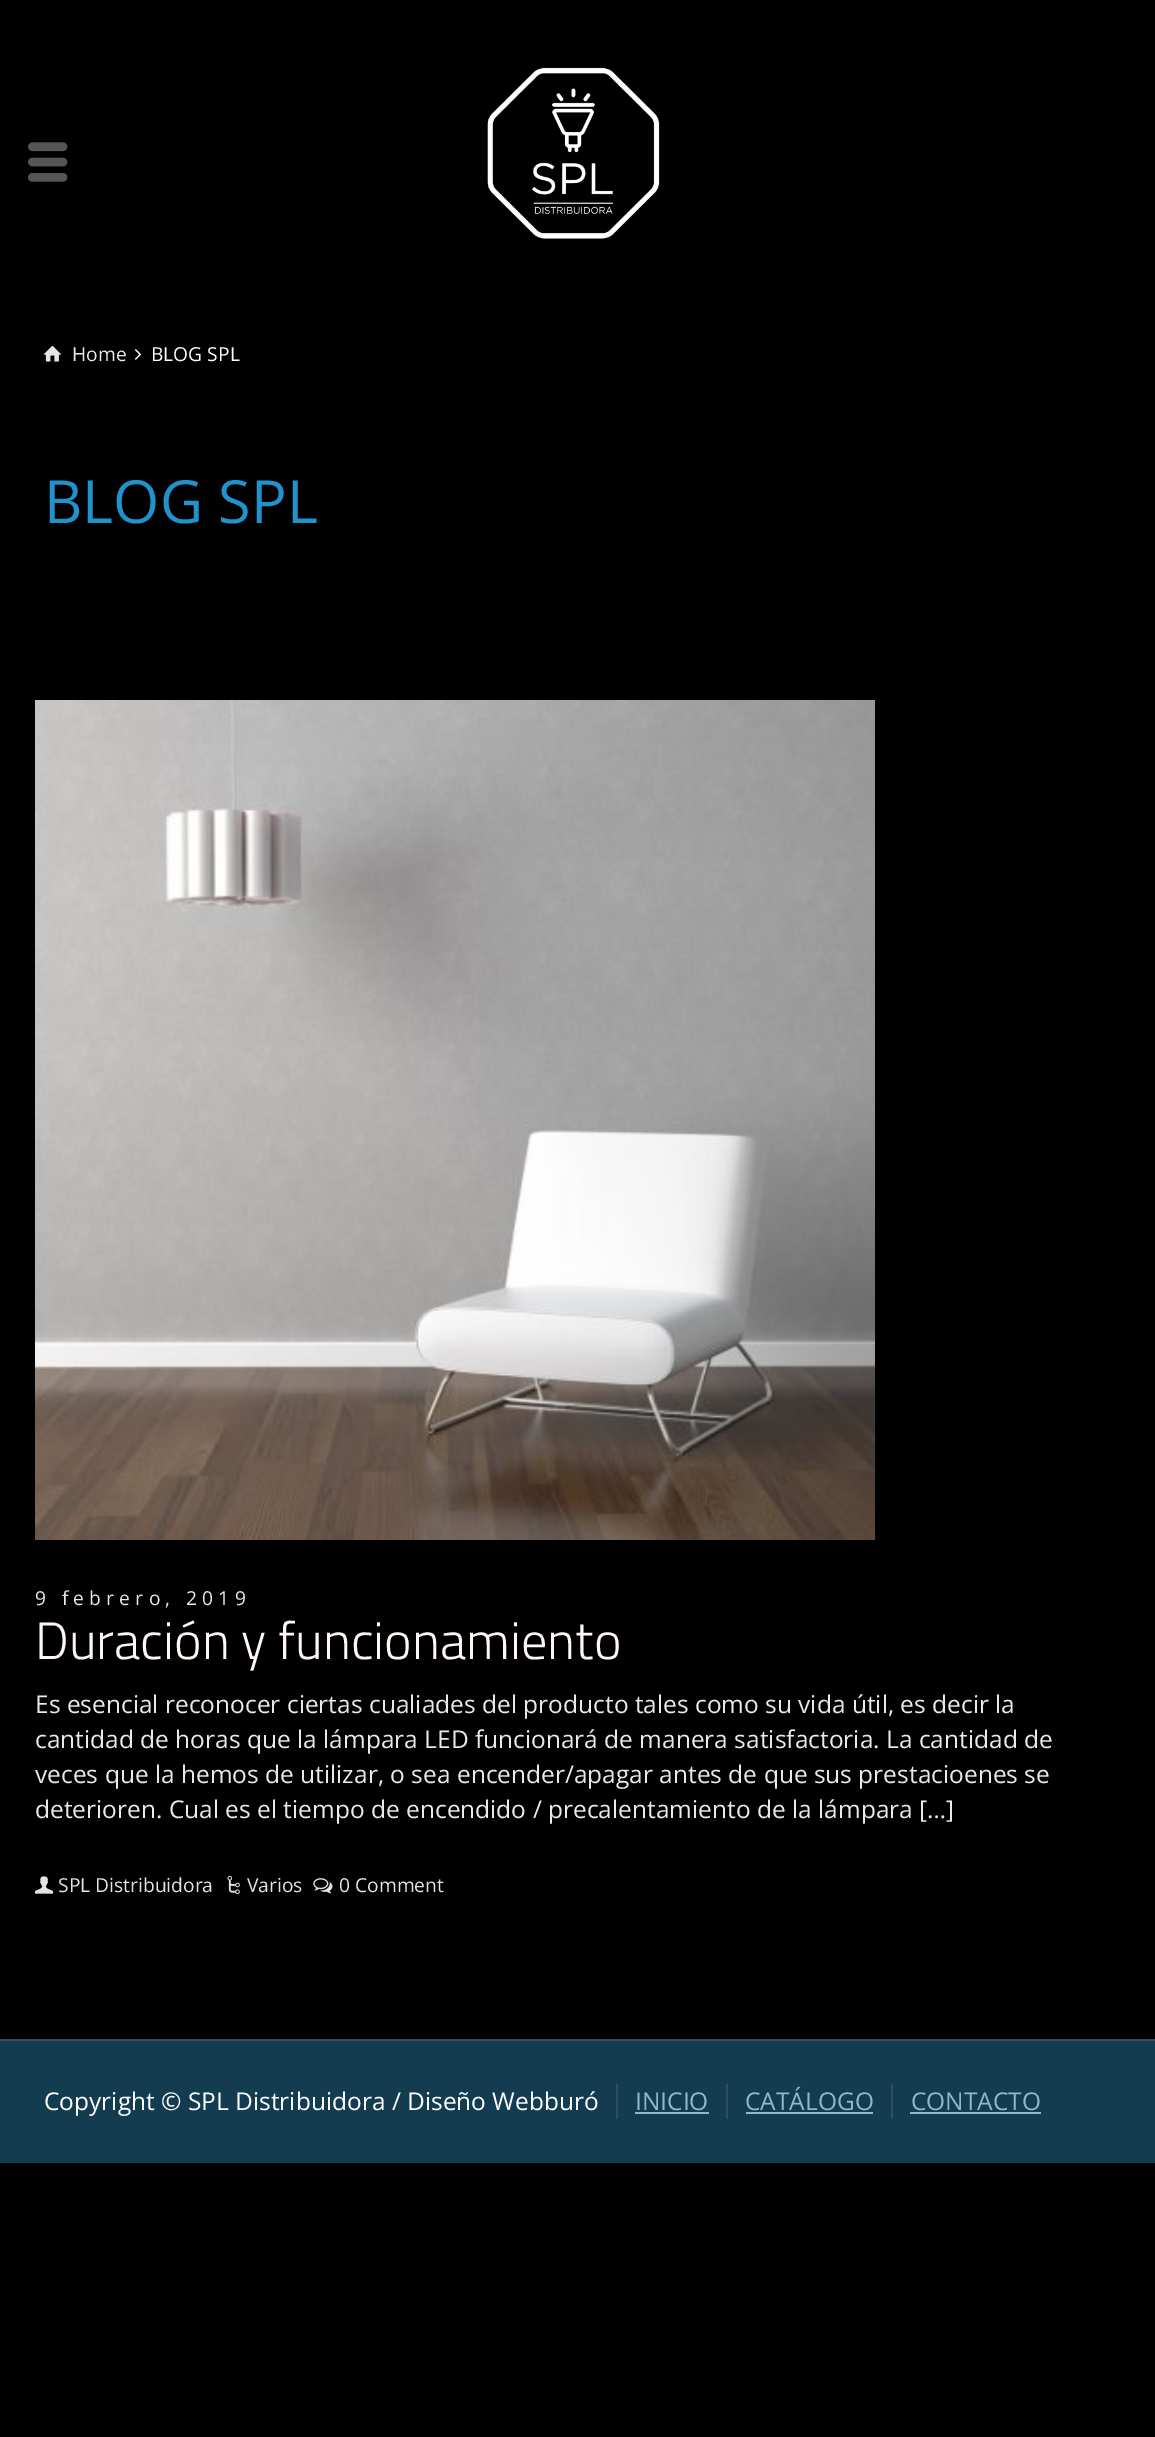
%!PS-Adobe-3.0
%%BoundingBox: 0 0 1155 2437
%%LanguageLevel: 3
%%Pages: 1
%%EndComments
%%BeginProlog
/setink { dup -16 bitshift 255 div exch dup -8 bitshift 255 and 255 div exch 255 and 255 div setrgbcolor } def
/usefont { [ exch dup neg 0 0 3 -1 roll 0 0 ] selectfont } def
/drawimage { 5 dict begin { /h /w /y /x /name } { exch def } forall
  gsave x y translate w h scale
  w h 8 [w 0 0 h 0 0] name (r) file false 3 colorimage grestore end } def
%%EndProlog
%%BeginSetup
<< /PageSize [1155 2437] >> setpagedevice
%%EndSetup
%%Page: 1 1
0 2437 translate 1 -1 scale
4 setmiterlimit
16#000000 setink
0 0 1155 2437 rectfill
(img1.raw) 28 142 40 40 drawimage
(img2.raw) 487 67 173 172 drawimage
(img3.raw) 43 346 18 16 drawimage
/OpenSans-Regular 19.25 usefont
16#EAEAEA setink
72 361 moveto (Home) show
(img4.raw) 134 349 8 11 drawimage
16#FFFFFF setink
151 361 moveto (BLOG SPL) show
/OpenSans-Regular 59.5 usefont
16#2092CC setink
44 523 moveto (BLOG SPL) show
(img5.raw) 35 700 840 840 drawimage
/OpenSans-Regular 19.25 usefont
16#EAEAEA setink
35 1605 moveto 5.25 0 (9 febrero, 2019) ashow
/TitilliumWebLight-Light 52.5 usefont
16#FFF6F6 setink
35 1659 moveto (Duración y funcionamiento) show
/OpenSans-Regular 24.5 usefont
16#EAEAEA setink
[
    [(Es esencial reconocer ciertas cualiades del producto tales como su vida útil, es decir la) 35 1713]
    [(cantidad de horas que la lámpara LED funcionará de manera satisfactoria. La cantidad de) 35 1748]
    [(veces que la hemos de utilizar, o sea encender/apagar antes de que sus prestacioenes se) 35 1783]
    [(deterioren. Cual es el tiempo de encendido / precalentamiento de la lámpara […]) 35 1818]
] { aload pop moveto show } forall
(img6.raw) 35 1876 19 18 drawimage
/OpenSans-Regular 19.25 usefont
16#E4E4E4 setink
58 1892 moveto (SPL Distribuidora) show
(img7.raw) 227 1876 13 18 drawimage
247 1892 moveto (Varios) show
(img8.raw) 313 1878 20 16 drawimage
339 1892 moveto (0 Comment) show
16#143C50 setink
0 2041 1155 122 rectfill
16#324D5A setink
0 2039 1155 2 rectfill
/OpenSans-Regular 24.5 usefont
16#FFFFFF setink
44 2110 moveto (Copyright © SPL Distribuidora / Diseño Webburó) show
16#324D5A setink
616 2084 2 35 rectfill
16#90B8CC setink
635 2110 moveto (INICIO) show
635 2112 74 2 rectfill
16#324D5A setink
726 2084 2 35 rectfill
16#90B8CC setink
745 2110 moveto (CATÁLOGO) show
746 2112 127 2 rectfill
16#324D5A setink
891 2084 2 35 rectfill
16#90B8CC setink
911 2110 moveto (CONTACTO) show
910 2112 131 2 rectfill
showpage
%%EOF
